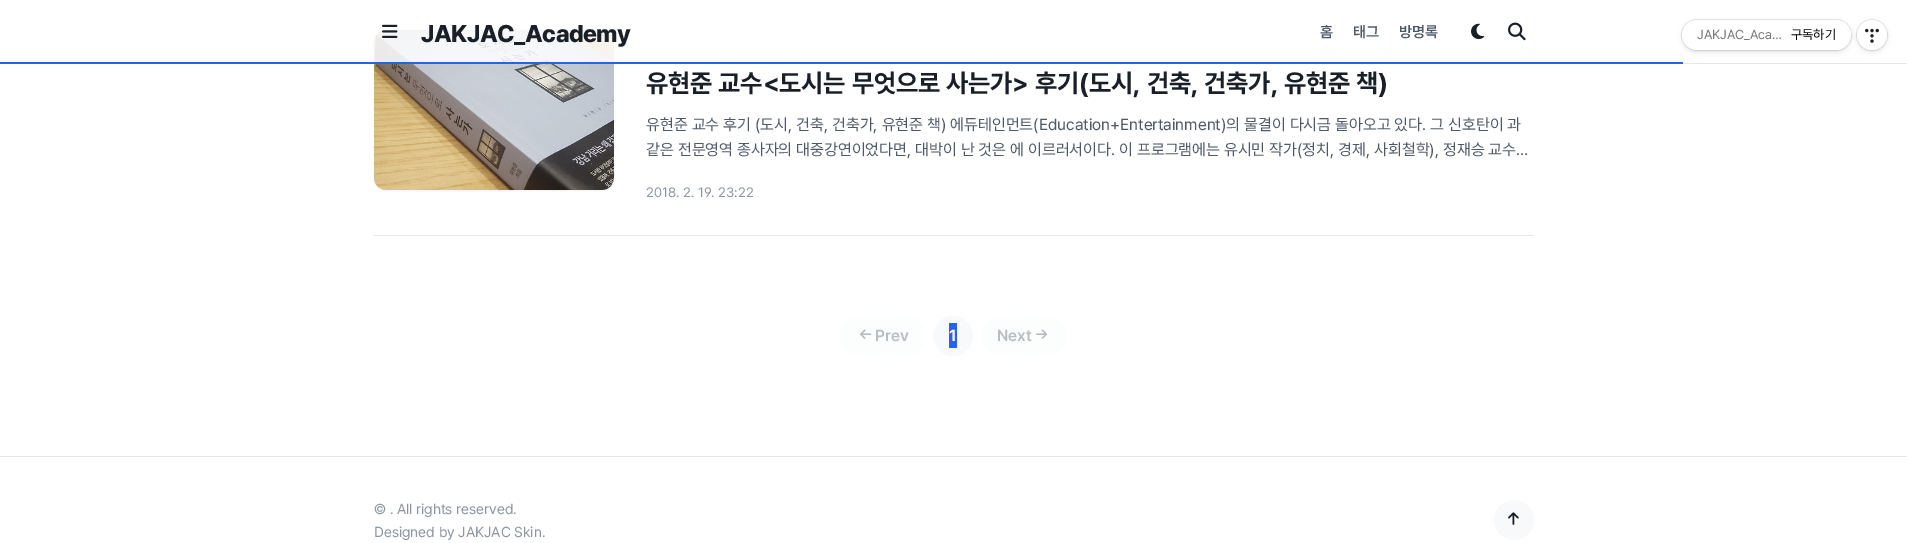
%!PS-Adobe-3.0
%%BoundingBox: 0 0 1907 543
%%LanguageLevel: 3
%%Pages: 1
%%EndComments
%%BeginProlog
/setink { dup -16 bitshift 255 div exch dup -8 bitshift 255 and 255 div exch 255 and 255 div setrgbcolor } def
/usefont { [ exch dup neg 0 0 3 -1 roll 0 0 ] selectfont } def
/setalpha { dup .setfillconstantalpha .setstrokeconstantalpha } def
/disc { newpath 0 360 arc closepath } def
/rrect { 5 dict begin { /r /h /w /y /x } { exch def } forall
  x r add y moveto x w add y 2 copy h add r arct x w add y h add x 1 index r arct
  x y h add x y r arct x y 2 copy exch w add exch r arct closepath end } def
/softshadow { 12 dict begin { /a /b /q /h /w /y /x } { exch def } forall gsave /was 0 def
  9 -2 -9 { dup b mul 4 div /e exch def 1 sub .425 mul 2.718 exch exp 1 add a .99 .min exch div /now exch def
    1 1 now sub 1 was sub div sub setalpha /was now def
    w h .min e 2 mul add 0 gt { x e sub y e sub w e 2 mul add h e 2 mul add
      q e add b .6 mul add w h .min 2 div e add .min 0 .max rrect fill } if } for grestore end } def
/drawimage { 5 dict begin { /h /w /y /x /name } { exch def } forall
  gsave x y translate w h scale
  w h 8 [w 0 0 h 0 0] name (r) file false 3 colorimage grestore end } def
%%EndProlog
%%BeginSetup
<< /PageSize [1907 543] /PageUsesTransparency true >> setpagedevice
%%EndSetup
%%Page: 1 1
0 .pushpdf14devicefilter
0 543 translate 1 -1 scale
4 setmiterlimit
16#FFFFFF setink
0 0 1907 543 rectfill
16#000000 setink
374 31 240 160 12 1 0.05 softshadow
(img5.raw) 374 30 240 160 drawimage
0.85 setalpha
16#FFFFFF setink
373 30 242 33 rectfill
1 setalpha
16#E5E7EB setink
1683 63 224 1 rectfill
(img1.raw) 382 24 16 14 drawimage
/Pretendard-ExtraBold 24 usefont
16#191F28 setink
421 42 moveto -0.5 0 (JAKJAC_Academy) ashow
/Pretendard-SemiBold 15 usefont
16#4E5968 setink
[
    [(홈) 1320 37]
    [(태그) 1353 37]
    [(방명록) 1399 37]
] { aload pop moveto show } forall
(img2.raw) 1471 23 14 17 drawimage
(img3.raw) 1508 22 18 19 drawimage
16#2563EB setink
0 62 1683 2 rectfill
16#000000 setink
1857 22 30 30 15 2.5 0.1 softshadow
0.1 setalpha
1872 35 15.5 disc stroke
1 setalpha
16#FFFFFF setink
1872 35 15 disc fill
16#000000 setink
1682 22 169 30 15 2.5 0.1 softshadow
0.1 setalpha
1681.5 19.5 170 31 15.5 rrect stroke
1 setalpha
16#FFFFFF setink
1682 20 169 30 15 rrect fill
/Pretendard-Regular 13 usefont
16#777777 setink
1697 39 moveto (JAKJAC_Aca…) show
16#000000 setink
1791 39 moveto (구독하기) show
(img4.raw) 1865 28 14 15 drawimage
16#E5E7EB setink
374 235 1160 1 rectfill
/Pretendard-Bold 25.6 usefont
16#191F28 setink
646 92 moveto (유현준 교수<도시는 무엇으로 사는가> 후기\(도시, 건축, 건축가, 유현준 책\)) show
/Pretendard-Regular 16 usefont
16#4E5968 setink
646 130 moveto (유현준 교수 후기 \(도시, 건축, 건축가, 유현준 책\) 에듀테인먼트\(Education+Entertainment\)의 물결이 다시금 돌아오고 있다. 그 신호탄이 과) show
646 155 moveto (같은 전문영역 종사자의 대중강연이었다면, 대박이 난 것은 에 이르러서이다. 이 프로그램에는 유시민 작가\(정치, 경제, 사회철학\), 정재승 교수…) show
/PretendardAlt-Regular 13.5 usefont
16#8B95A1 setink
646 197 moveto (2018. 2. 19. 23:22) show
16#FCFDFD setink
840 316 85 40 20 rrect fill
(img6.raw) 860 329 12 10 drawimage
/Pretendard-SemiBold 16 usefont
16#B8BDC3 setink
875 341 moveto (Prev) show
16#F8F9FA setink
953 336 20 disc fill
16#2563EB setink
949 323 8 25 rectfill
/Pretendard-Bold 16 usefont
16#FFFFFF setink
949 341 moveto (1) show
16#FCFDFD setink
981 316 86 40 20 rrect fill
/Pretendard-SemiBold 16 usefont
16#B8BDC3 setink
997 341 moveto (Next) show
(img7.raw) 1036 329 12 10 drawimage
16#E5E7EB setink
0 456 1907 1 rectfill
/Pretendard-Regular 14.4 usefont
16#8B95A1 setink
374 514 moveto (© . All rights reserved.) show
374 537 moveto (Designed by JAKJAC Skin.) show
16#F8F9FA setink
1514 520 20 disc fill
(img8.raw) 1508 512 11 13 drawimage
.poppdf14devicefilter showpage
%%EOF
